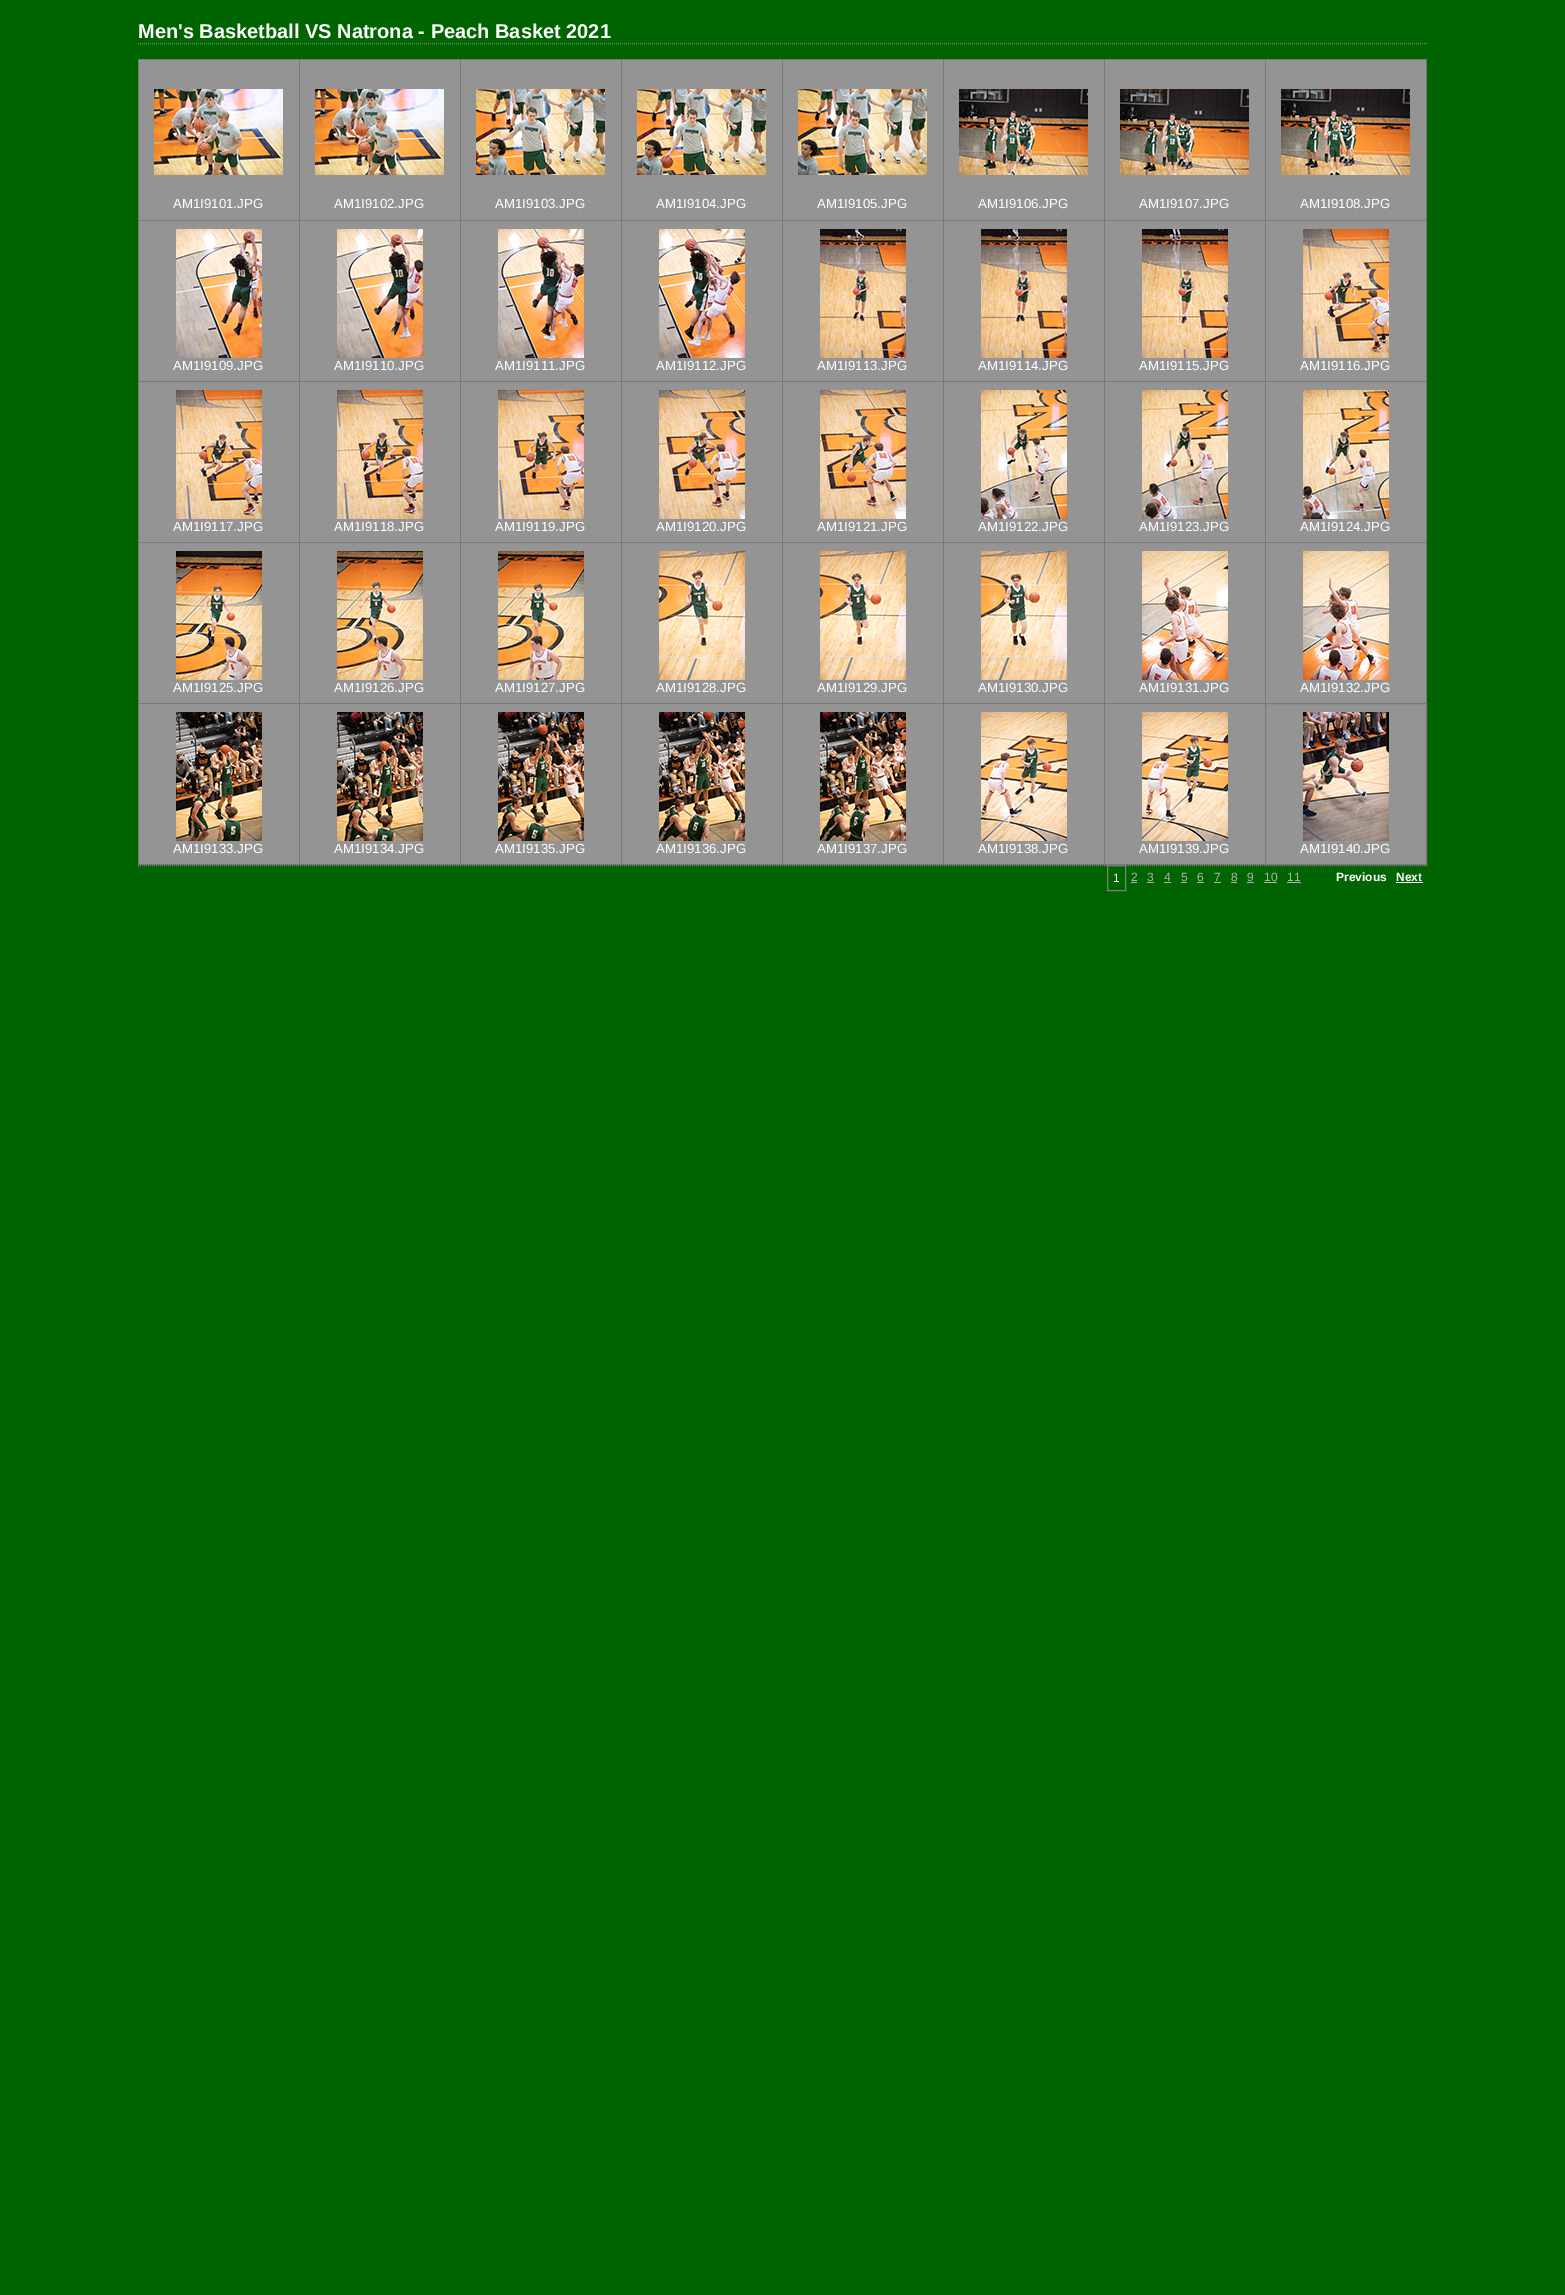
%!PS-Adobe-3.0
%%BoundingBox: 0 0 1565 2295
%%LanguageLevel: 3
%%Pages: 1
%%EndComments
%%BeginProlog
/setink { dup -16 bitshift 255 div exch dup -8 bitshift 255 and 255 div exch 255 and 255 div setrgbcolor } def
/usefont { [ exch dup neg 0 0 3 -1 roll 0 0 ] selectfont } def
/drawimage { 5 dict begin { /h /w /y /x /name } { exch def } forall
  gsave x y translate w h scale
  w h 8 [w 0 0 h 0 0] name (r) file false 3 colorimage grestore end } def
%%EndProlog
%%BeginSetup
<< /PageSize [1565 2295] >> setpagedevice
%%EndSetup
%%Page: 1 1
0 2295 translate 1 -1 scale
4 setmiterlimit
16#006400 setink
0 0 1565 2295 rectfill
16#7F7F7F setink
[1 1] 0 setdash
138 43.5 moveto 1428 43.5 lineto stroke
/LiberationSans-Bold 20 usefont
16#FFFFFF setink
138 38 moveto (Men's Basketball VS Natrona - Peach Basket 2021) show
[
    [139 60 160 160 16#949494]
    [138 59 1289 1 16#787878]
    [138 59 1 161 16#787878]
] { aload pop setink rectfill } forall
(img1.raw) 154 89 129 86 drawimage
/LiberationSans-Regular 13.25 usefont
16#FFFFFF setink
173 208 moveto (AM1I9101.JPG) show
16#949494 setink
300 60 160 160 rectfill
16#787878 setink
299 59 1 161 rectfill
(img2.raw) 315 89 129 86 drawimage
16#FFFFFF setink
334 208 moveto (AM1I9102.JPG) show
16#949494 setink
461 60 160 160 rectfill
16#787878 setink
460 59 1 161 rectfill
(img3.raw) 476 89 129 86 drawimage
16#FFFFFF setink
495 208 moveto (AM1I9103.JPG) show
16#949494 setink
622 60 160 160 rectfill
16#787878 setink
621 59 1 161 rectfill
(img4.raw) 637 89 129 86 drawimage
16#FFFFFF setink
656 208 moveto (AM1I9104.JPG) show
16#949494 setink
783 60 160 160 rectfill
16#787878 setink
782 59 1 161 rectfill
(img5.raw) 798 89 129 86 drawimage
16#FFFFFF setink
817 208 moveto (AM1I9105.JPG) show
16#949494 setink
944 60 160 160 rectfill
16#787878 setink
943 59 1 161 rectfill
(img6.raw) 959 89 129 86 drawimage
16#FFFFFF setink
978 208 moveto (AM1I9106.JPG) show
16#949494 setink
1105 60 160 160 rectfill
16#787878 setink
1104 59 1 161 rectfill
(img7.raw) 1120 89 129 86 drawimage
16#FFFFFF setink
1139 208 moveto (AM1I9107.JPG) show
[
    [1266 60 160 160 16#949494]
    [1426 59 1 161 16#787878]
    [1265 59 1 161 16#787878]
] { aload pop setink rectfill } forall
(img8.raw) 1281 89 129 86 drawimage
16#FFFFFF setink
1300 208 moveto (AM1I9108.JPG) show
[
    [139 221 160 160 16#949494]
    [138 220 1289 1 16#787878]
    [138 220 1 161 16#787878]
] { aload pop setink rectfill } forall
(img9.raw) 176 229 86 129 drawimage
16#FFFFFF setink
173 370 moveto (AM1I9109.JPG) show
16#949494 setink
300 221 160 160 rectfill
16#787878 setink
299 220 1 161 rectfill
(img10.raw) 337 229 86 129 drawimage
16#FFFFFF setink
334 370 moveto (AM1I9110.JPG) show
16#949494 setink
461 221 160 160 rectfill
16#787878 setink
460 220 1 161 rectfill
(img11.raw) 498 229 86 129 drawimage
16#FFFFFF setink
495 370 moveto (AM1I9111.JPG) show
16#949494 setink
622 221 160 160 rectfill
16#787878 setink
621 220 1 161 rectfill
(img12.raw) 659 229 86 129 drawimage
16#FFFFFF setink
656 370 moveto (AM1I9112.JPG) show
16#949494 setink
783 221 160 160 rectfill
16#787878 setink
782 220 1 161 rectfill
(img13.raw) 820 229 86 129 drawimage
16#FFFFFF setink
817 370 moveto (AM1I9113.JPG) show
16#949494 setink
944 221 160 160 rectfill
16#787878 setink
943 220 1 161 rectfill
(img14.raw) 981 229 86 129 drawimage
16#FFFFFF setink
978 370 moveto (AM1I9114.JPG) show
16#949494 setink
1105 221 160 160 rectfill
16#787878 setink
1104 220 1 161 rectfill
(img15.raw) 1142 229 86 129 drawimage
16#FFFFFF setink
1139 370 moveto (AM1I9115.JPG) show
[
    [1266 221 160 160 16#949494]
    [1426 220 1 161 16#787878]
    [1265 220 1 161 16#787878]
] { aload pop setink rectfill } forall
(img16.raw) 1303 229 86 129 drawimage
16#FFFFFF setink
1300 370 moveto (AM1I9116.JPG) show
[
    [139 382 160 160 16#949494]
    [138 381 1289 1 16#787878]
    [138 381 1 161 16#787878]
] { aload pop setink rectfill } forall
(img17.raw) 176 390 86 129 drawimage
16#FFFFFF setink
173 531 moveto (AM1I9117.JPG) show
16#949494 setink
300 382 160 160 rectfill
16#787878 setink
299 381 1 161 rectfill
(img18.raw) 337 390 86 129 drawimage
16#FFFFFF setink
334 531 moveto (AM1I9118.JPG) show
16#949494 setink
461 382 160 160 rectfill
16#787878 setink
460 381 1 161 rectfill
(img19.raw) 498 390 86 129 drawimage
16#FFFFFF setink
495 531 moveto (AM1I9119.JPG) show
16#949494 setink
622 382 160 160 rectfill
16#787878 setink
621 381 1 161 rectfill
(img20.raw) 659 390 86 129 drawimage
16#FFFFFF setink
656 531 moveto (AM1I9120.JPG) show
16#949494 setink
783 382 160 160 rectfill
16#787878 setink
782 381 1 161 rectfill
(img21.raw) 820 390 86 129 drawimage
16#FFFFFF setink
817 531 moveto (AM1I9121.JPG) show
16#949494 setink
944 382 160 160 rectfill
16#787878 setink
943 381 1 161 rectfill
(img22.raw) 981 390 86 129 drawimage
16#FFFFFF setink
978 531 moveto (AM1I9122.JPG) show
16#949494 setink
1105 382 160 160 rectfill
16#787878 setink
1104 381 1 161 rectfill
(img23.raw) 1142 390 86 129 drawimage
16#FFFFFF setink
1139 531 moveto (AM1I9123.JPG) show
[
    [1266 382 160 160 16#949494]
    [1426 381 1 161 16#787878]
    [1265 381 1 161 16#787878]
] { aload pop setink rectfill } forall
(img24.raw) 1303 390 86 129 drawimage
16#FFFFFF setink
1300 531 moveto (AM1I9124.JPG) show
[
    [139 543 160 160 16#949494]
    [138 542 1289 1 16#787878]
    [138 542 1 161 16#787878]
] { aload pop setink rectfill } forall
(img25.raw) 176 551 86 129 drawimage
16#FFFFFF setink
173 692 moveto (AM1I9125.JPG) show
16#949494 setink
300 543 160 160 rectfill
16#787878 setink
299 542 1 161 rectfill
(img26.raw) 337 551 86 129 drawimage
16#FFFFFF setink
334 692 moveto (AM1I9126.JPG) show
16#949494 setink
461 543 160 160 rectfill
16#787878 setink
460 542 1 161 rectfill
(img27.raw) 498 551 86 129 drawimage
16#FFFFFF setink
495 692 moveto (AM1I9127.JPG) show
16#949494 setink
622 543 160 160 rectfill
16#787878 setink
621 542 1 161 rectfill
(img28.raw) 659 551 86 129 drawimage
16#FFFFFF setink
656 692 moveto (AM1I9128.JPG) show
16#949494 setink
783 543 160 160 rectfill
16#787878 setink
782 542 1 161 rectfill
(img29.raw) 820 551 86 129 drawimage
16#FFFFFF setink
817 692 moveto (AM1I9129.JPG) show
16#949494 setink
944 543 160 160 rectfill
16#787878 setink
943 542 1 161 rectfill
(img30.raw) 981 551 86 129 drawimage
16#FFFFFF setink
978 692 moveto (AM1I9130.JPG) show
16#949494 setink
1105 543 160 160 rectfill
16#787878 setink
1104 542 1 161 rectfill
(img31.raw) 1142 551 86 129 drawimage
16#FFFFFF setink
1139 692 moveto (AM1I9131.JPG) show
[
    [1266 543 160 160 16#949494]
    [1426 542 1 161 16#787878]
    [1265 542 1 161 16#787878]
] { aload pop setink rectfill } forall
(img32.raw) 1303 551 86 129 drawimage
16#FFFFFF setink
1300 692 moveto (AM1I9132.JPG) show
[
    [139 704 160 160 16#949494]
    [138 703 1127 1 16#787878]
    [138 864 1127 1 16#787878]
    [138 703 1 162 16#787878]
] { aload pop setink rectfill } forall
(img33.raw) 176 712 86 129 drawimage
16#FFFFFF setink
173 853 moveto (AM1I9133.JPG) show
16#949494 setink
300 704 160 160 rectfill
16#787878 setink
299 703 1 162 rectfill
(img34.raw) 337 712 86 129 drawimage
16#FFFFFF setink
334 853 moveto (AM1I9134.JPG) show
16#949494 setink
461 704 160 160 rectfill
16#787878 setink
460 703 1 162 rectfill
(img35.raw) 498 712 86 129 drawimage
16#FFFFFF setink
495 853 moveto (AM1I9135.JPG) show
16#949494 setink
622 704 160 160 rectfill
16#787878 setink
621 703 1 162 rectfill
(img36.raw) 659 712 86 129 drawimage
16#FFFFFF setink
656 853 moveto (AM1I9136.JPG) show
16#949494 setink
783 704 160 160 rectfill
16#787878 setink
782 703 1 162 rectfill
(img37.raw) 820 712 86 129 drawimage
16#FFFFFF setink
817 853 moveto (AM1I9137.JPG) show
16#949494 setink
944 704 160 160 rectfill
16#787878 setink
943 703 1 162 rectfill
(img38.raw) 981 712 86 129 drawimage
16#FFFFFF setink
978 853 moveto (AM1I9138.JPG) show
16#949494 setink
1105 704 160 160 rectfill
16#787878 setink
1104 703 1 162 rectfill
(img39.raw) 1142 712 86 129 drawimage
16#FFFFFF setink
1139 853 moveto (AM1I9139.JPG) show
16#949494 setink
1265.5 703.5 moveto 1426.5 703.5 lineto 1426.5 864.5 lineto 1265.5 864.5 lineto closepath gsave fill grestore
16#787878 setink
[] 0 setdash
stroke
(img40.raw) 1303 712 86 129 drawimage
16#FFFFFF setink
1300 853 moveto (AM1I9140.JPG) show
16#7F7F7F setink
[1 1] 0 setdash
138 865.5 moveto 1428 865.5 lineto stroke
[] 0 setdash
1107.5 865.5 18 25 rectstroke
/LiberationSans-Regular 12 usefont
16#FFFFFF setink
1113 882 moveto (1) show
16#B3B3B3 setink
1131 881 moveto (2) show
1131 882 6 1 rectfill
1147 881 moveto (3) show
1147 882 7 1 rectfill
1164 881 moveto (4) show
1164 882 7 1 rectfill
1181 881 moveto (5) show
1181 882 6 1 rectfill
1197 881 moveto (6) show
1197 882 7 1 rectfill
1214 881 moveto (7) show
1214 882 7 1 rectfill
1231 881 moveto (8) show
1231 882 6 1 rectfill
1247 881 moveto (9) show
1247 882 7 1 rectfill
1264 881 moveto (10) show
1264 882 13 1 rectfill
1287 881 moveto (11) show
1287 882 14 1 rectfill
/LiberationSans-Bold 12 usefont
16#FFFFFF setink
1336 881 moveto (Previous) show
1396 881 moveto (Next) show
1396 882 27 1 rectfill
showpage
%%EOF
